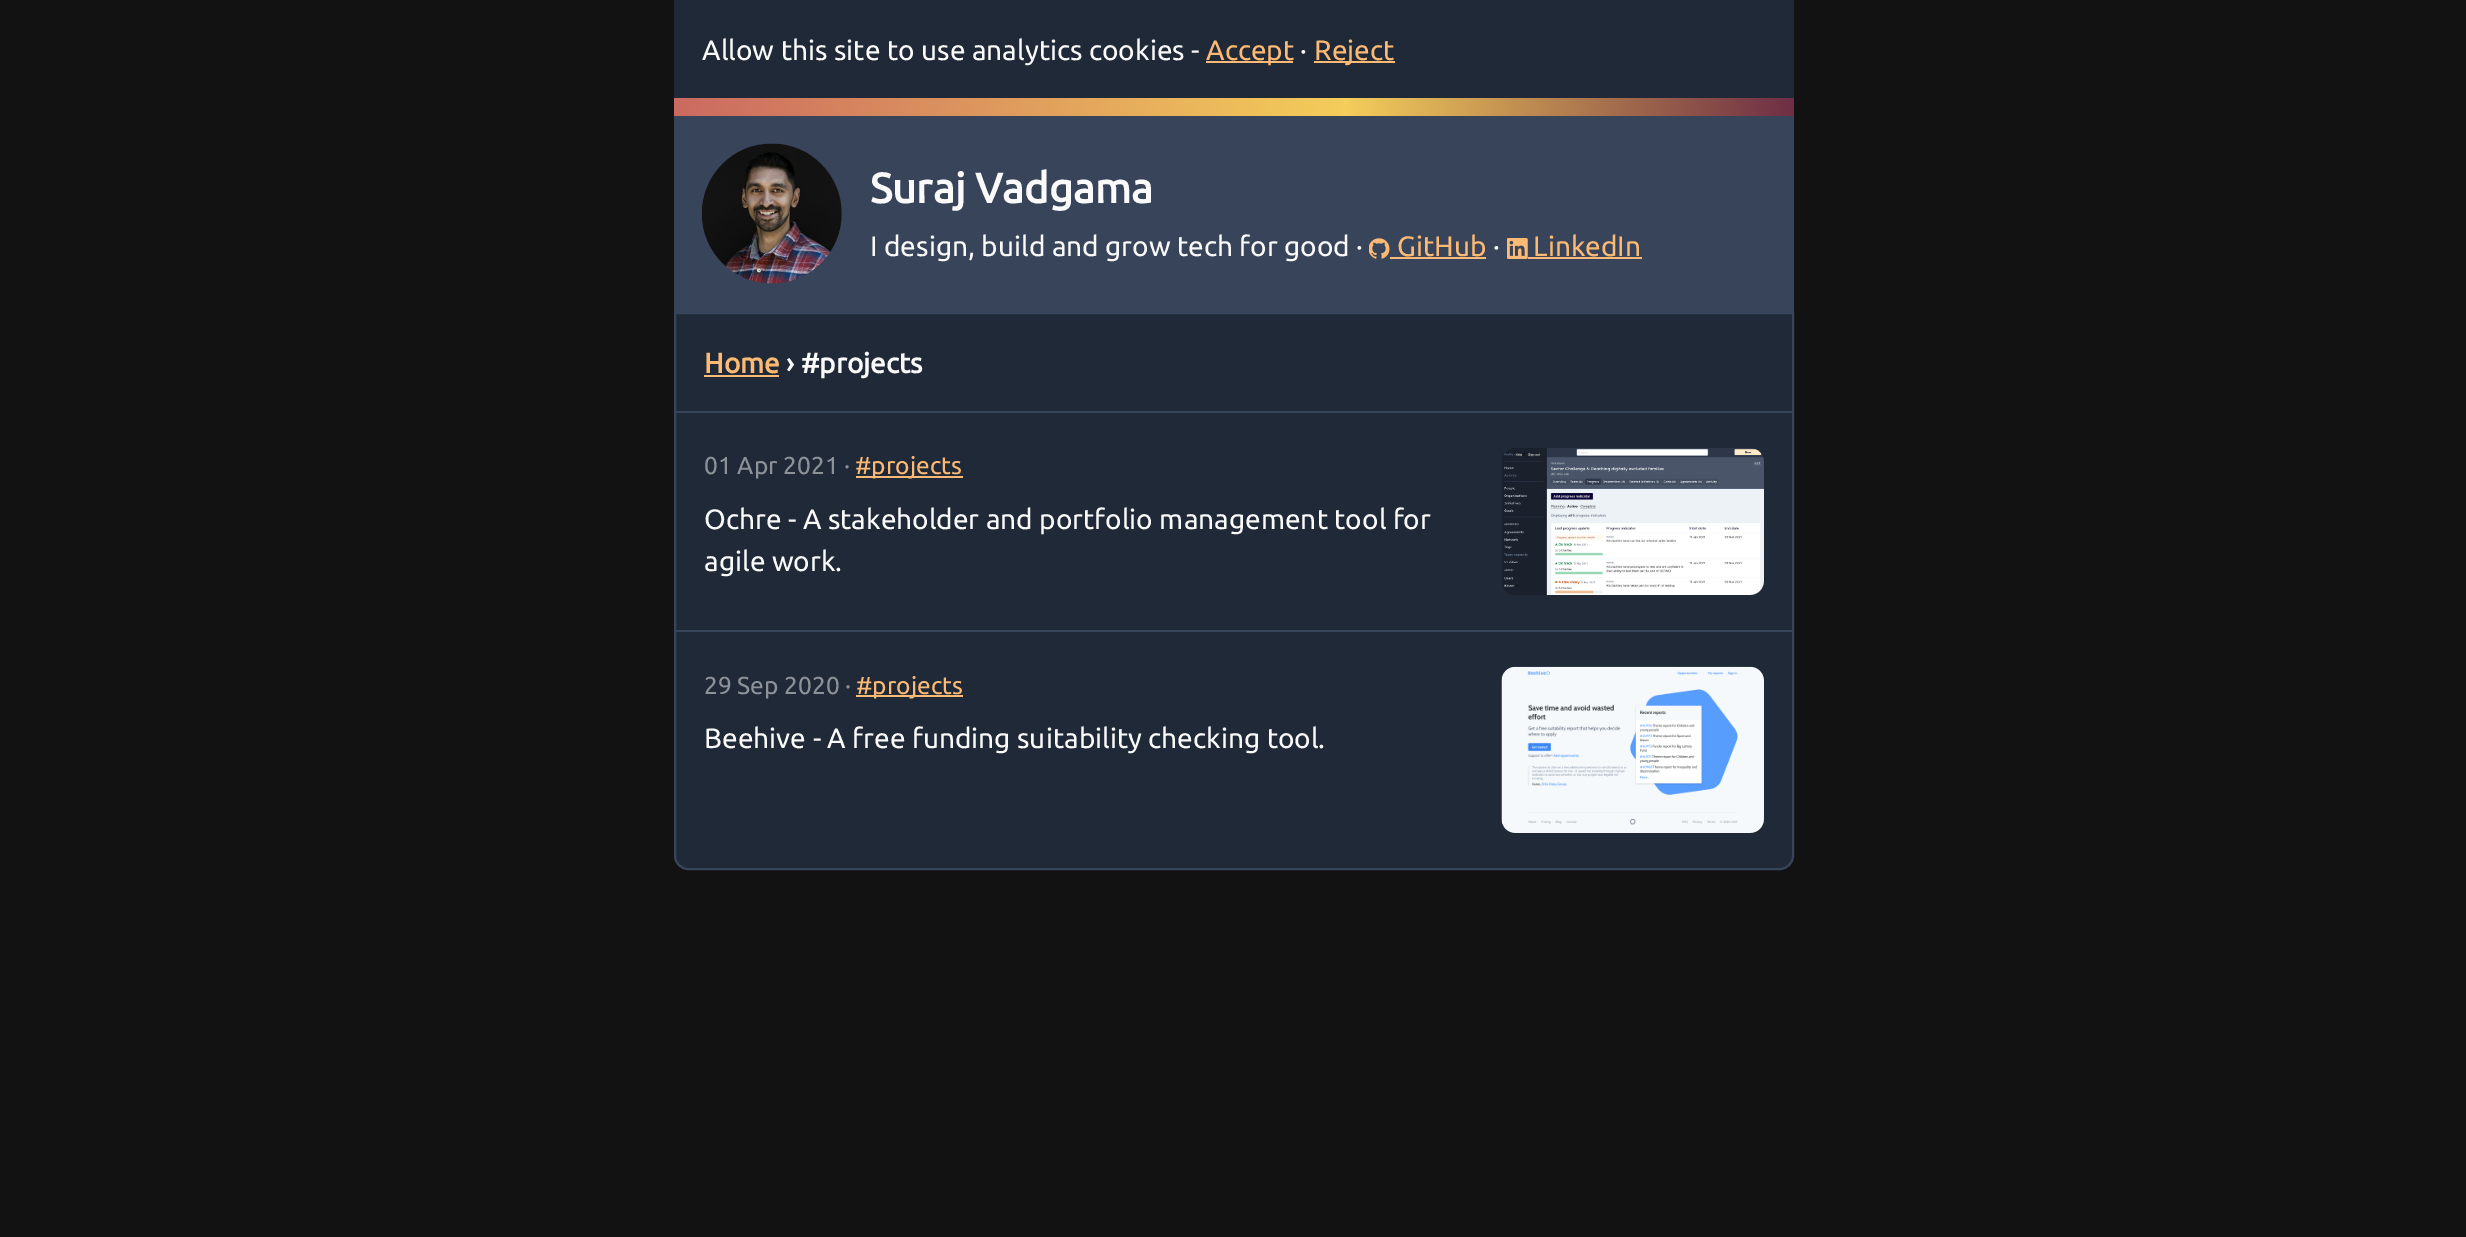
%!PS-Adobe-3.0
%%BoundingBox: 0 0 2466 1237
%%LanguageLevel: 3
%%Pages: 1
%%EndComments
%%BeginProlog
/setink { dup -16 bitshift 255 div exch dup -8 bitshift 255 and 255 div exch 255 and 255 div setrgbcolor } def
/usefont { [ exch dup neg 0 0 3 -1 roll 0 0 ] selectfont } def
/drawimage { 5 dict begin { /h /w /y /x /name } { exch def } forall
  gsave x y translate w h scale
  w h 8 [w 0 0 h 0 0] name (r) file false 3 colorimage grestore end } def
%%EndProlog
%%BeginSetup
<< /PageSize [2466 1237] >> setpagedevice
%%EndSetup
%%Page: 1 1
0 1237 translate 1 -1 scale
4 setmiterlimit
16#121212 setink
0 0 2466 1237 rectfill
16#1F2937 setink
674 0 1120 98 rectfill
/Ubuntu-Regular 28 usefont
16#FAFAFA setink
702 60 moveto (Allow this site to use analytics cookies -) show
16#FDBA74 setink
1206 61 87 2 rectfill
1206 60 moveto (Accept) show
16#FAFAFA setink
1300 60 moveto (·) show
16#FDBA74 setink
1314 61 81 2 rectfill
1314 60 moveto (Reject) show
gsave 674 98 moveto 1794 98 lineto 1794 116 lineto 674 116 lineto closepath clip newpath
<< /ShadingType 2 /ColorSpace /DeviceRGB /Coords [674 107 1794 107] /Extend [true true] /Function << /FunctionType 3 /Domain [0 1] /Functions [<< /FunctionType 2 /Domain [0 1] /C0 [0.796 0.416 0.38] /C1 [0.957 0.804 0.353] /N 1 >> << /FunctionType 2 /Domain [0 1] /C0 [0.957 0.804 0.353] /C1 [0.431 0.18 0.271] /N 1 >>] /Bounds [0.6] /Encode [0 1 0 1] >> >> shfill grestore
16#37445A setink
674 116 1120 196 rectfill
(img1.raw) 701 143 141 141 drawimage
/Ubuntu-Bold 42 usefont
16#FAFAFA setink
870 203 moveto (Suraj Vadgama) show
/Ubuntu-Regular 28 usefont
870 256 moveto (I design, build and grow tech for good ·) show
(img2.raw) 1369 238 21 21 drawimage
16#FDBA74 setink
1397 256 moveto (GitHub) show
1390 257 96 2 rectfill
16#FAFAFA setink
1493 256 moveto (·) show
(img3.raw) 1507 238 21 21 drawimage
16#FDBA74 setink
1533 256 moveto (LinkedIn) show
1528 257 114 2 rectfill
16#1F2937 setink
675 313 moveto 1793 313 lineto 1793 856 lineto 1793 863 1787 869 1780 869 curveto 688 869 lineto 681 869 675 863 675 856 curveto closepath gsave fill grestore
16#37445A setink
2 setlinewidth
stroke
/Ubuntu-Bold 28 usefont
16#FDBA74 setink
704 373 moveto (Home) show
704 375 75 2 rectfill
16#FAFAFA setink
786 373 moveto (› #projects) show
16#37445A setink
676 411 1116 2 rectfill
/Ubuntu-Regular 24.5 usefont
16#8D9299 setink
704 474 moveto (01 Apr 2021 ·) show
16#FDBA74 setink
856 476 107 2 rectfill
855 474 moveto (#projects) show
/Ubuntu-Regular 28 usefont
16#FAFAFA setink
704 529 moveto (Ochre - A stakeholder and portfolio management tool for) show
704 571 moveto (agile work.) show
(img4.raw) 1502 448 262 147 drawimage
16#37445A setink
676 630 1116 2 rectfill
/Ubuntu-Regular 24.5 usefont
16#8D9299 setink
704 694 moveto (29 Sep 2020 ·) show
16#FDBA74 setink
856 695 107 2 rectfill
856 694 moveto (#projects) show
/Ubuntu-Regular 28 usefont
16#FAFAFA setink
704 748 moveto (Beehive - A free funding suitability checking tool.) show
(img5.raw) 1501 666 263 167 drawimage
showpage
%%EOF
